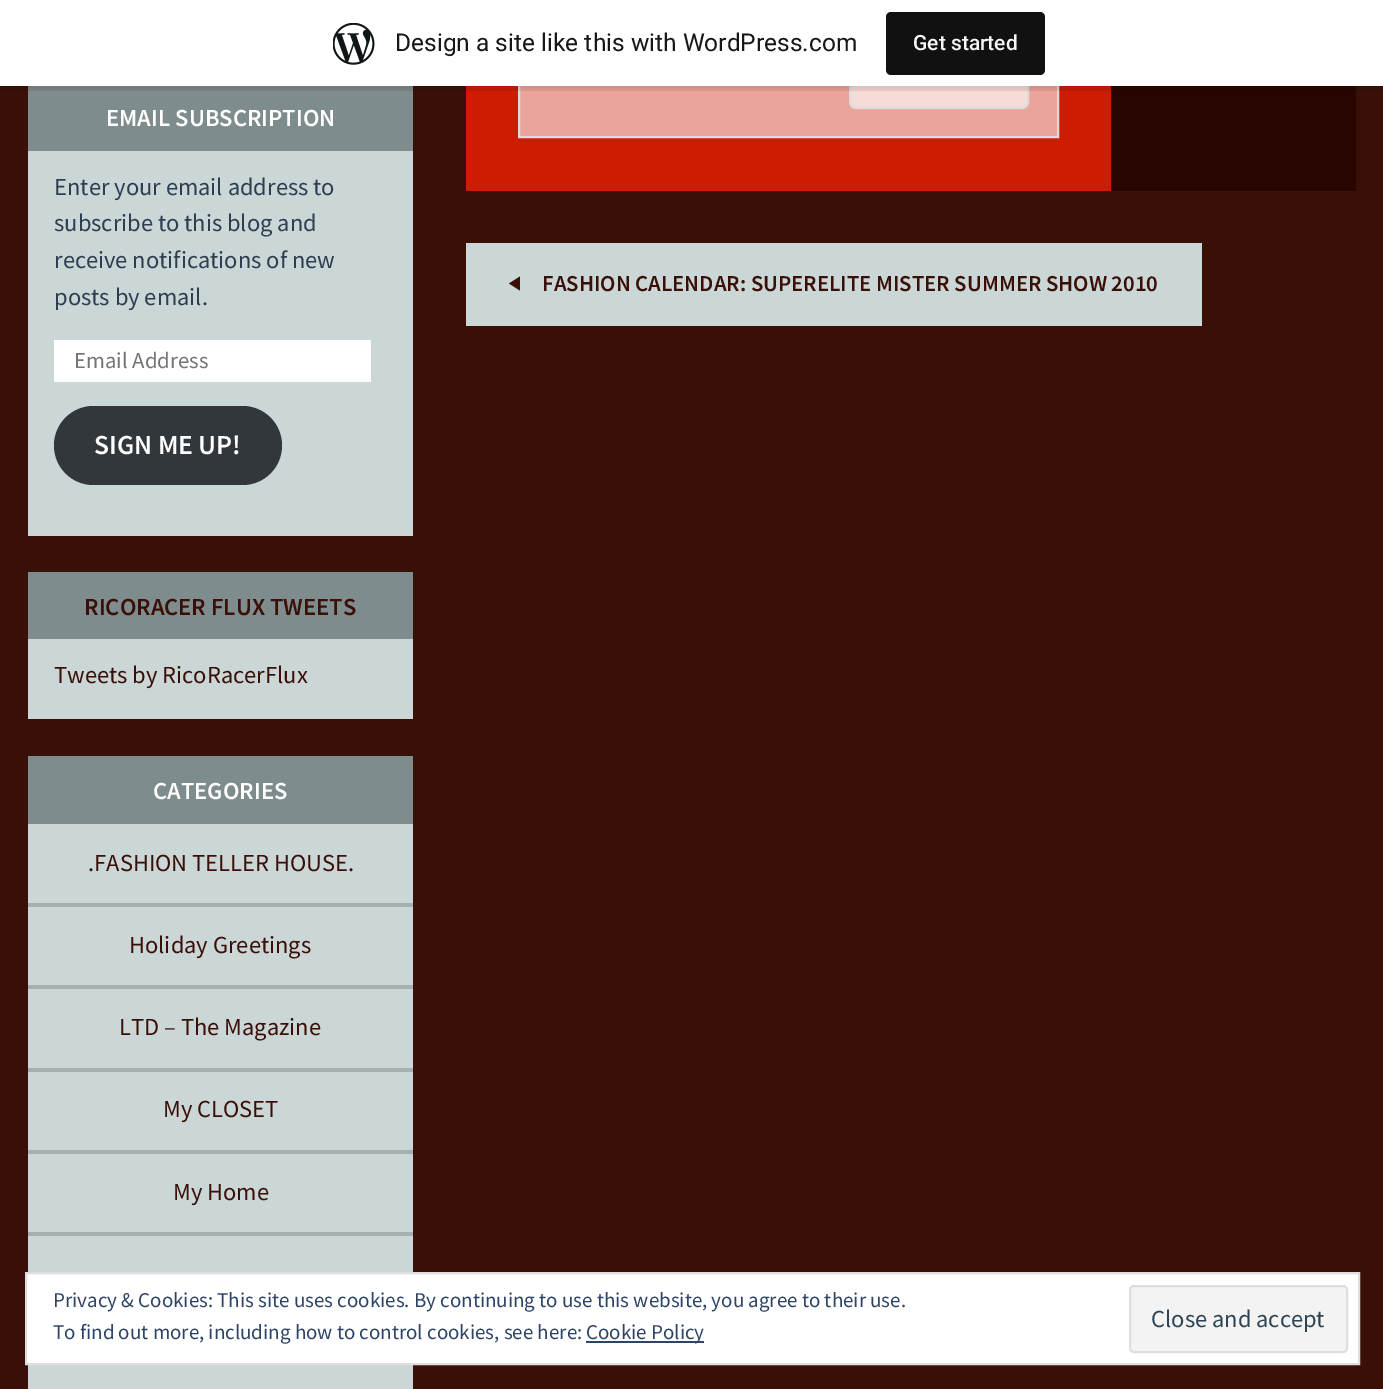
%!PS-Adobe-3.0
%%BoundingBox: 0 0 1383 1389
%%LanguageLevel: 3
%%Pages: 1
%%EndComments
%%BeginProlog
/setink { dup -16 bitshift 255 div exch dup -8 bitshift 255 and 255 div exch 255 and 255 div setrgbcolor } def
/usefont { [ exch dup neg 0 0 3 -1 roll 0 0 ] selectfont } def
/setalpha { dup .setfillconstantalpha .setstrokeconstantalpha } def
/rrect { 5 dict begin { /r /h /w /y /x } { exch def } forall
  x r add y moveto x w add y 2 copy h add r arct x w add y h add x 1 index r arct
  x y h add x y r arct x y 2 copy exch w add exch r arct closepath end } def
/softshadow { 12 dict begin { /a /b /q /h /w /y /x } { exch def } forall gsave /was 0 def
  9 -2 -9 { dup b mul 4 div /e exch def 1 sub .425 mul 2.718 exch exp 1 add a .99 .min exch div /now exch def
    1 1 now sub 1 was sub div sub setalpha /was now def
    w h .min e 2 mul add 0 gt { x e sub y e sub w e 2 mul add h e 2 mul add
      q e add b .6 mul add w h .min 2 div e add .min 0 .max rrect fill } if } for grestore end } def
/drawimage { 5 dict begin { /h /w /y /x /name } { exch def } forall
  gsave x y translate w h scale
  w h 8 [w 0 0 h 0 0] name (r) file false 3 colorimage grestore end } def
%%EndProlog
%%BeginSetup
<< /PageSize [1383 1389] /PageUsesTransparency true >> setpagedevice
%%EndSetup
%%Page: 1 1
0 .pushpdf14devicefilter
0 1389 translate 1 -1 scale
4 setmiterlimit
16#390F08 setink
0 0 1383 1389 rectfill
[
    [28 86 385 65 16#7F8C8D]
    [466 86 645 105 16#CD1C01]
    [520 86 537 50 16#EBA499]
] { aload pop setink rectfill } forall
16#DCDCDE setink
2 setlinewidth
519 -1 539 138 rectstroke
16#F7DBD6 setink
850 45 178 63 6 rrect gsave fill grestore
16#DCDCDE setink
stroke
16#280500 setink
1111 86 245 105 rectfill
16#000000 setink
0 2 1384 86 0 2 0.05 softshadow
0.08 setalpha
2 86 moveto 2 91 lineto 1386 91 lineto 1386 5 lineto 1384 5 lineto 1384 86 lineto closepath fill
1 setalpha
16#FFFFFF setink
0 0 1383 86 rectfill
(img1.raw) 333 23 42 42 drawimage
/Roboto-Regular 24.5 usefont
16#171717 setink
395 51 moveto (Design a site like this with WordPress.com) show
16#111111 setink
886 12 159 63 5 rrect fill
/Roboto-Medium 21 usefont
16#F6F7F7 setink
913 50 moveto (Get started) show
16#CBD6D6 setink
28 151 385 385 rectfill
/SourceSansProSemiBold-SemiBold 24.5 usefont
16#FFFFFF setink
106 126 moveto (EMAIL SUBSCRIPTION) show
/SourceSansPro-Regular 24.5 usefont
16#2C3E50 setink
[
    [(Enter your email address to) 54 195]
    [(subscribe to this blog and) 54 231]
    [(receive notifications of new) 54 268]
    [(posts by email.) 54 305]
] { aload pop moveto show } forall
16#FFFFFF setink
54 340 317 42 rectfill
/SourceSansPro-Regular 22.75 usefont
16#757575 setink
74 368 moveto (Email Address) show
16#32373C setink
54 406 228 79 39.5 rrect fill
/SourceSansProSemiBold-SemiBold 27.5 usefont
16#FFFFFF setink
94 454 moveto (SIGN ME UP!) show
16#CBD6D6 setink
28 639 385 80 rectfill
16#7F8C8D setink
28 572 385 67 rectfill
/SourceSansProSemiBold-SemiBold 24.5 usefont
16#390F08 setink
84 615 moveto (RICORACER FLUX TWEETS) show
/SourceSansPro-Regular 24.5 usefont
54 683 moveto (Tweets by RicoRacerFlux) show
16#CBD6D6 setink
28 824 385 565 rectfill
16#7F8C8D setink
28 756 385 68 rectfill
/SourceSansProSemiBold-SemiBold 24.5 usefont
16#FFFFFF setink
153 799 moveto (CATEGORIES) show
16#A7B0B1 setink
28 903 385 4 rectfill
/SourceSansPro-Regular 24.5 usefont
16#390F08 setink
88 871 moveto (.FASHION TELLER HOUSE.) show
16#A7B0B1 setink
28 985 385 4 rectfill
16#390F08 setink
129 953 moveto (Holiday Greetings) show
16#A7B0B1 setink
28 1068 385 4 rectfill
16#390F08 setink
119 1035 moveto (LTD – The Magazine) show
16#A7B0B1 setink
28 1150 385 4 rectfill
16#390F08 setink
163 1117 moveto (My CLOSET) show
16#A7B0B1 setink
28 1232 385 4 rectfill
16#390F08 setink
173 1200 moveto (My Home) show
16#CBD6D6 setink
466 243 736 83 rectfill
16#390F08 setink
520 290.5 moveto 509 283.5 lineto 520 276.5 lineto closepath fill
/SourceSansProSemiBold-SemiBold 22.75 usefont
542 291 moveto (FASHION CALENDAR: SUPERELITE MISTER SUMMER SHOW 2010) show
16#FFFFFF setink
26 1273 moveto 1359 1273 lineto 1359 1364 lineto 26 1364 lineto closepath gsave fill grestore
16#DEDEDE setink
stroke
/SourceSansPro-Regular 21 usefont
16#2E4467 setink
53 1307 moveto (Privacy & Cookies: This site uses cookies. By continuing to use this website, you agree to their use.) show
53 1339 moveto (To find out more, including how to control cookies, see here:) show
586 1341 118 2 rectfill
586 1339 moveto (Cookie Policy) show
16#F3F3F3 setink
1130 1286 217 66 4 rrect gsave fill grestore
16#DEDEDE setink
stroke
/SourceSansPro-Regular 24.5 usefont
16#2E4453 setink
1151 1327 moveto (Close and accept) show
.poppdf14devicefilter showpage
%%EOF
